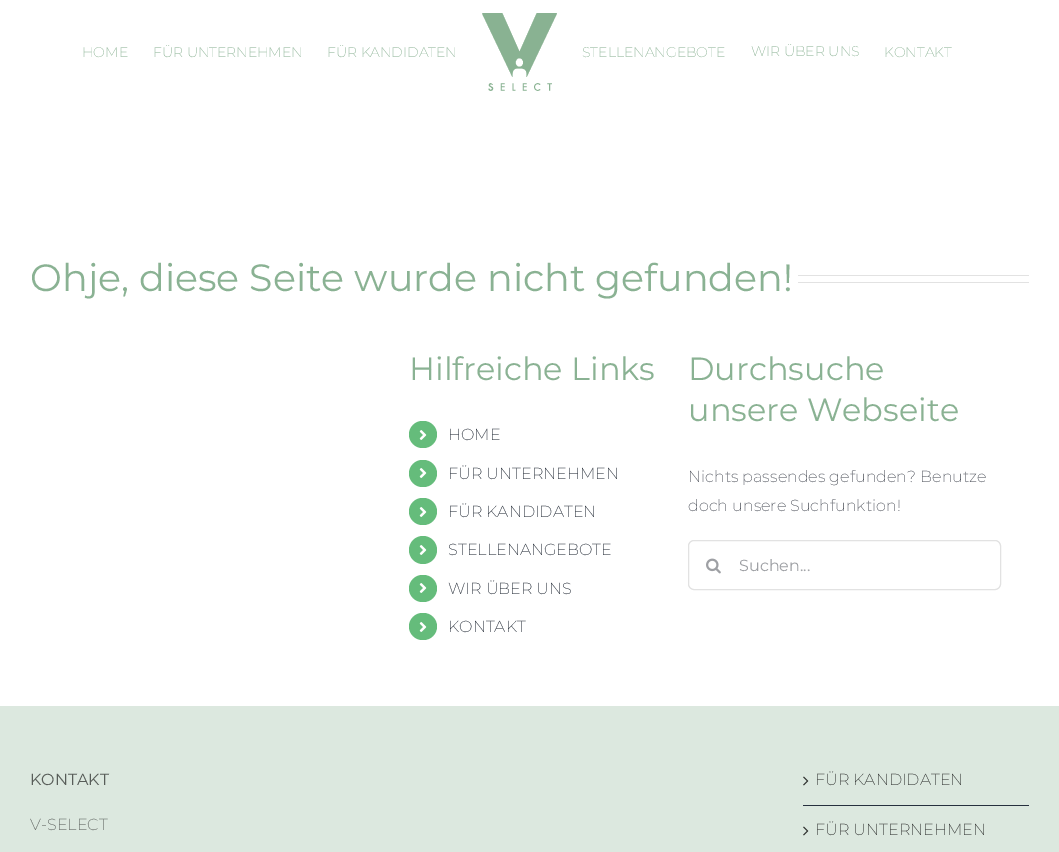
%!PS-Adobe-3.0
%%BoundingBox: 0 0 1059 852
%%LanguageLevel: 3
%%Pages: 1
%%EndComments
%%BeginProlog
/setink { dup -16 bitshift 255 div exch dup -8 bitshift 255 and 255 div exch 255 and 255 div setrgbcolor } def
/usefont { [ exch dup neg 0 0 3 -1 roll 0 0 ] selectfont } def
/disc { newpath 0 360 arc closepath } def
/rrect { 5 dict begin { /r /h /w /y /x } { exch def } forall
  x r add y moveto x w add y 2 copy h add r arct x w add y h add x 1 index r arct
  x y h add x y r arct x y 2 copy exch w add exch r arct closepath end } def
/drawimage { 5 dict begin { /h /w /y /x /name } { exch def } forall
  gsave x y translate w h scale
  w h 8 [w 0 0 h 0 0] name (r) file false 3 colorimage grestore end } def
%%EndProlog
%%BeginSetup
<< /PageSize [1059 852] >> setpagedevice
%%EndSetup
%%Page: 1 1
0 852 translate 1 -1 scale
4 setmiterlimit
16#FFFFFF setink
0 0 1059 852 rectfill
/Montserrat-ExtraLight 14 usefont
16#8AB293 setink
[
    [(HOME) 82 57]
    [(FÜR UNTERNEHMEN) 153 57]
    [(FÜR KANDIDATEN) 327 57]
] { aload pop moveto show } forall
(img1.raw) 482 13 75 78 drawimage
[
    [(STELLENANGEBOTE) 582 57]
    [(WIR ÜBER UNS) 751 56]
    [(KONTAKT) 884 57]
] { aload pop moveto show } forall
/Montserrat-Regular 38 usefont
30 291 moveto (Ohje, diese Seite wurde nicht gefunden!) show
16#E2E2E2 setink
798 275 231 1 rectfill
798 282 231 1 rectfill
/Montserrat-Regular 32 usefont
16#8AB293 setink
409 380 moveto (Hilfreiche Links) show
16#65BC7B setink
409 421 28 27 13.5 rrect fill
(img2.raw) 419 430 8 10 drawimage
/Montserrat-ExtraLight 16 usefont
16#212934 setink
448 440 moveto (HOME) show
16#65BC7B setink
409 460 28 27 13.5 rrect fill
(img2.raw) 419 468 8 10 drawimage
16#212934 setink
448 479 moveto (FÜR UNTERNEHMEN) show
16#65BC7B setink
409 498 28 27 13.5 rrect fill
(img2.raw) 419 507 8 10 drawimage
16#212934 setink
448 517 moveto (FÜR KANDIDATEN) show
16#65BC7B setink
423 550 14 disc fill
(img2.raw) 419 545 8 10 drawimage
16#212934 setink
448 555 moveto (STELLENANGEBOTE) show
16#65BC7B setink
409 575 28 27 13.5 rrect fill
(img2.raw) 419 583 8 10 drawimage
16#212934 setink
448 594 moveto (WIR ÜBER UNS) show
16#65BC7B setink
409 613 28 27 13.5 rrect fill
(img2.raw) 419 622 8 10 drawimage
16#212934 setink
448 632 moveto (KONTAKT) show
/Montserrat-Regular 32 usefont
16#8AB293 setink
688 380 moveto (Durchsuche) show
688 421 moveto (unsere Webseite) show
/Montserrat-ExtraLight 16 usefont
16#4A4E57 setink
688 482 moveto (Nichts passendes gefunden? Benutze) show
688 511 moveto (doch unsere Suchfunktion!) show
16#E2E2E2 setink
688.5 540.5 312 49 5.5 rrect stroke
(img3.raw) 706 558 15 16 drawimage
/Montserrat-Regular 16 usefont
16#9EA0A4 setink
739 571 moveto (Suchen...) show
16#DCE8DF setink
0 706 1059 146 rectfill
16#585D59 setink
30 785 moveto (KONTAKT) show
/Montserrat-ExtraLight 16 usefont
30 830 moveto (V-SELECT) show
16#26303E setink
803 805 226 1 rectfill
(img4.raw) 803 776 6 10 drawimage
16#2C2E2D setink
815 785 moveto (FÜR KANDIDATEN) show
(img4.raw) 803 826 6 10 drawimage
815 835 moveto (FÜR UNTERNEHMEN) show
showpage
%%EOF
